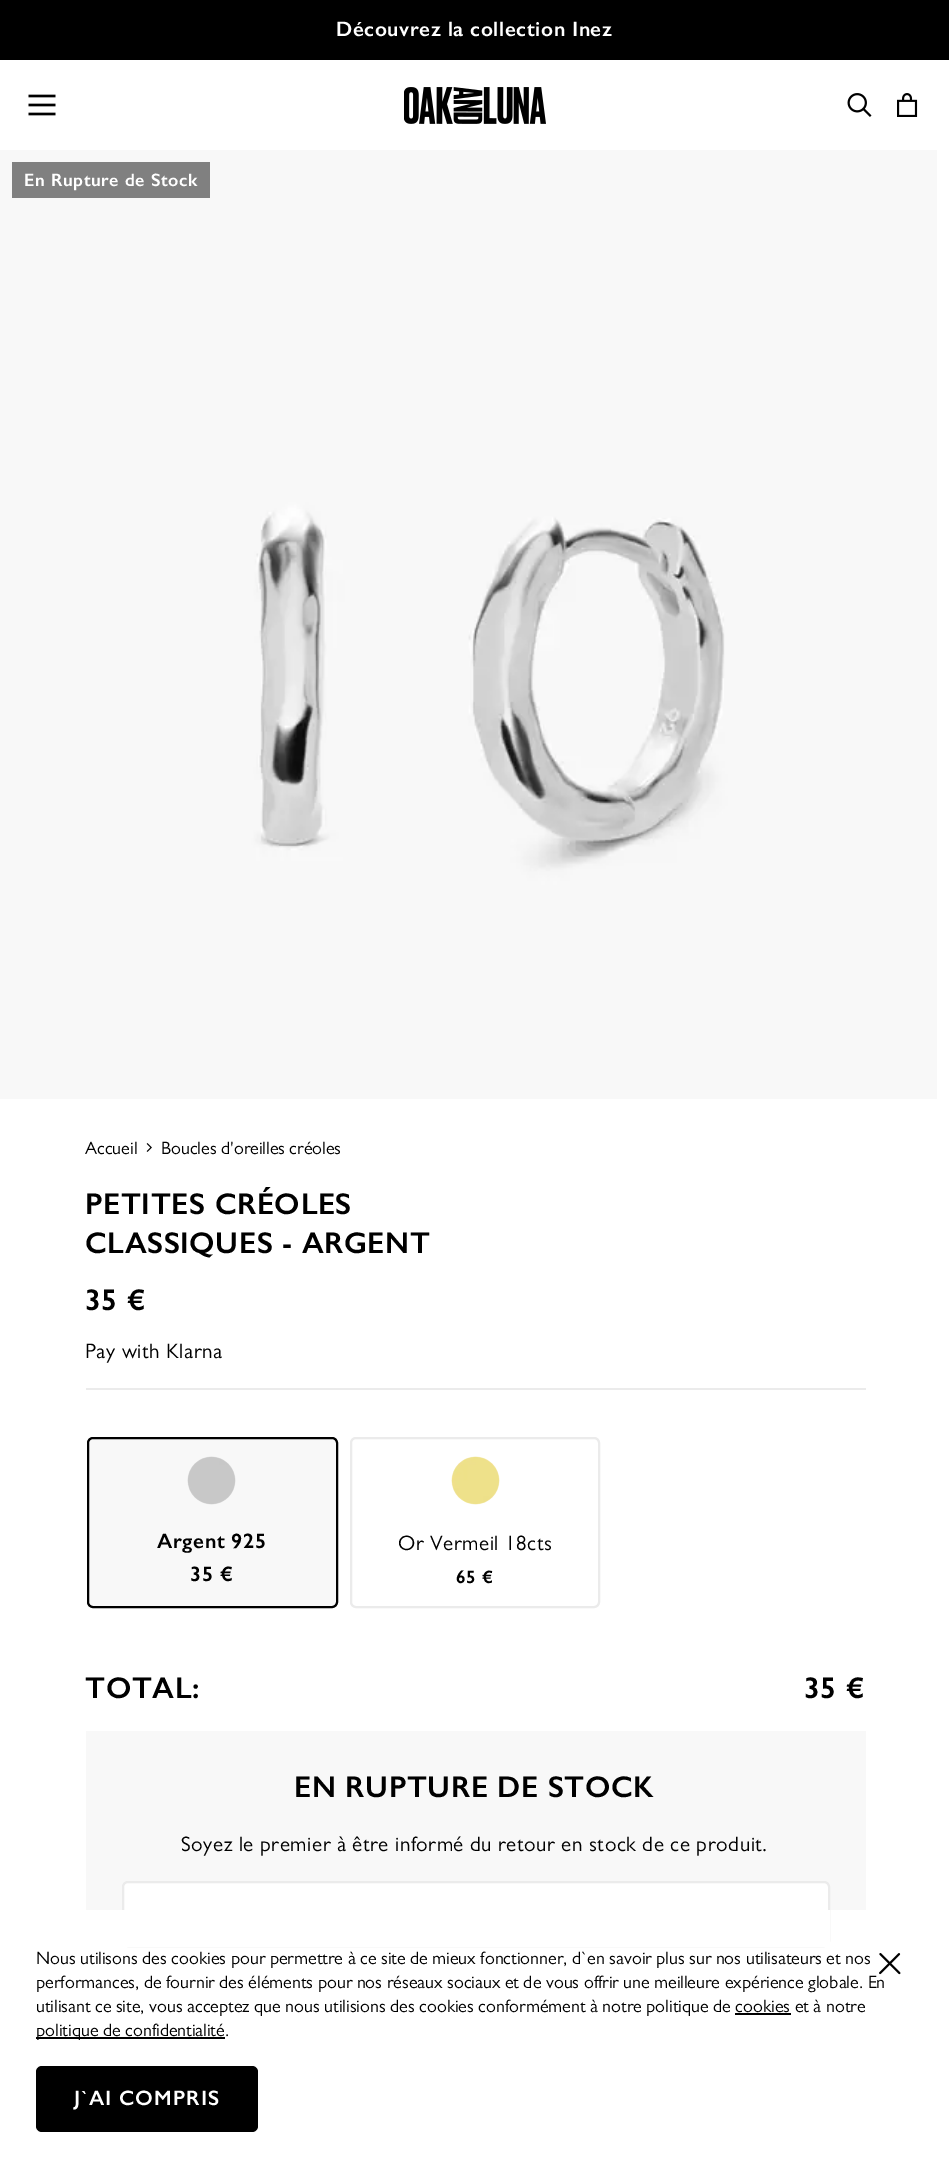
%!PS-Adobe-3.0
%%BoundingBox: 0 0 949 2167
%%LanguageLevel: 3
%%Pages: 1
%%EndComments
%%BeginProlog
/setink { dup -16 bitshift 255 div exch dup -8 bitshift 255 and 255 div exch 255 and 255 div setrgbcolor } def
/usefont { [ exch dup neg 0 0 3 -1 roll 0 0 ] selectfont } def
/rrect { 5 dict begin { /r /h /w /y /x } { exch def } forall
  x r add y moveto x w add y 2 copy h add r arct x w add y h add x 1 index r arct
  x y h add x y r arct x y 2 copy exch w add exch r arct closepath end } def
/drawimage { 5 dict begin { /h /w /y /x /name } { exch def } forall
  gsave x y translate w h scale
  w h 8 [w 0 0 h 0 0] name (r) file false 3 colorimage grestore end } def
%%EndProlog
%%BeginSetup
<< /PageSize [949 2167] >> setpagedevice
%%EndSetup
%%Page: 1 1
0 2167 translate 1 -1 scale
4 setmiterlimit
16#FFFFFF setink
0 0 949 2167 rectfill
16#000000 setink
0 0 949 60 rectfill
/GillSans-SemiBold 21 usefont
16#FFFFFF setink
336 36 moveto 0.6 0 (Découvrez la collection Inez) ashow
(img1.raw) 28 94 28 22 drawimage
(img2.raw) 404 87 142 37 drawimage
(img3.raw) 847 93 25 24 drawimage
(img4.raw) 897 93 21 24 drawimage
(img5.raw) 0 150 937 949 drawimage
16#808080 setink
12 162 198 36 rectfill
/GillSans-SemiBold 18 usefont
16#FFFFFF setink
24 186 moveto 0.6 0 (En Rupture de Stock) ashow
/GillSans-Regular 18 usefont
16#000000 setink
85 1154 moveto (Accueil) show
(img6.raw) 146 1143 6 9 drawimage
161 1154 moveto (Boucles d'oreilles créoles) show
/GillSans-SemiBold 30 usefont
85 1214 moveto 0.6 0 (PETITES CRÉOLES) ashow
85 1253 moveto 0.6 0 (CLASSIQUES - ARGENT) ashow
85 1310 moveto 0.6 0 (35 €) ashow
/GillSans-Regular 21 usefont
85 1358 moveto 0.6 0 (Pay with Klarna) ashow
16#EBEBEB setink
86 1388 780 2 rectfill
16#F8F8F8 setink
88 1438 249 169 5 rrect gsave fill grestore
16#000000 setink
2 setlinewidth
stroke
(img7.raw) 187 1456 49 49 drawimage
/GillSans-SemiBold 21 usefont
157 1548 moveto 0.6 0 (Argent 925) ashow
190 1581 moveto 0.6 0 (35 €) ashow
16#EBEBEB setink
351 1438 248 169 5 rrect stroke
(img8.raw) 451 1456 49 49 drawimage
/GillSans-Regular 21 usefont
16#000000 setink
398 1550 moveto 0.6 0 (Or Vermeil 18cts) ashow
/GillSans-SemiBold 18 usefont
456 1583 moveto 0.6 0 (65 €) ashow
/GillSans-SemiBold 30 usefont
85 1698 moveto 0.6 0 (TOTAL:) ashow
804 1698 moveto 0.6 0 (35 €) ashow
16#F8F8F8 setink
86 1731 780 179 rectfill
16#000000 setink
294 1797 moveto 0.6 0 (EN RUPTURE DE STOCK) ashow
/GillSans-Regular 21 usefont
181 1851 moveto 0.6 0 (Soyez le premier à être informé du retour en stock de ce produit.) ashow
16#FFFFFF setink
123 1882 706 64 5 rrect gsave fill grestore
16#EBEBEB setink
stroke
16#FFFFFF setink
122 1910 708 37 rectfill
/GillSans-Regular 18 usefont
16#000000 setink
[
    [(Nous utilisons des cookies pour permettre à ce site de mieux fonctionner, d`en savoir plus sur nos utilisateurs et nos) 36 1964]
    [(performances, de fournir des éléments pour nos réseaux sociaux et de vous offrir une meilleure expérience globale. En) 36 1988]
    [(utilisant ce site, vous acceptez que nous utilisions des cookies conformément à notre politique de cookies et à notre) 36 2012]
] { aload pop moveto show } forall
735 2013 56 2 rectfill
36 2037 189 2 rectfill
36 2036 moveto (politique de confidentialité.) show
36 2066 222 66 6 rrect fill
/GillSans-SemiBold 21 usefont
16#FFFFFF setink
74 2105 moveto 1 0 (J`AI COMPRIS) ashow
(img9.raw) 879 1953 22 22 drawimage
showpage
%%EOF
